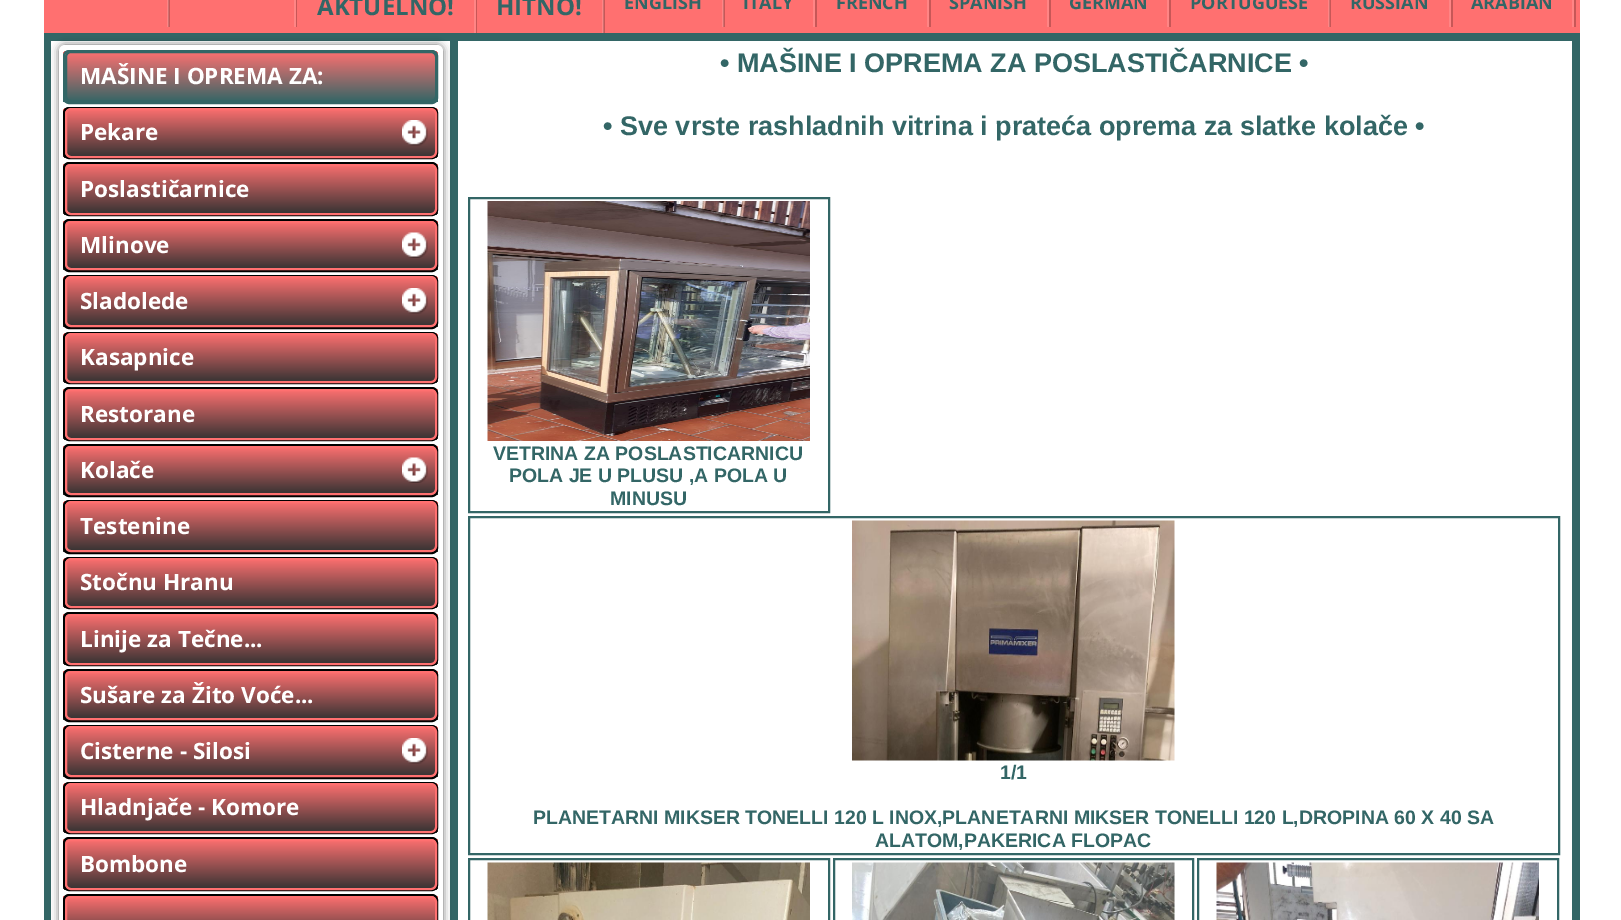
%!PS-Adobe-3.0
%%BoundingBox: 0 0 1621 920
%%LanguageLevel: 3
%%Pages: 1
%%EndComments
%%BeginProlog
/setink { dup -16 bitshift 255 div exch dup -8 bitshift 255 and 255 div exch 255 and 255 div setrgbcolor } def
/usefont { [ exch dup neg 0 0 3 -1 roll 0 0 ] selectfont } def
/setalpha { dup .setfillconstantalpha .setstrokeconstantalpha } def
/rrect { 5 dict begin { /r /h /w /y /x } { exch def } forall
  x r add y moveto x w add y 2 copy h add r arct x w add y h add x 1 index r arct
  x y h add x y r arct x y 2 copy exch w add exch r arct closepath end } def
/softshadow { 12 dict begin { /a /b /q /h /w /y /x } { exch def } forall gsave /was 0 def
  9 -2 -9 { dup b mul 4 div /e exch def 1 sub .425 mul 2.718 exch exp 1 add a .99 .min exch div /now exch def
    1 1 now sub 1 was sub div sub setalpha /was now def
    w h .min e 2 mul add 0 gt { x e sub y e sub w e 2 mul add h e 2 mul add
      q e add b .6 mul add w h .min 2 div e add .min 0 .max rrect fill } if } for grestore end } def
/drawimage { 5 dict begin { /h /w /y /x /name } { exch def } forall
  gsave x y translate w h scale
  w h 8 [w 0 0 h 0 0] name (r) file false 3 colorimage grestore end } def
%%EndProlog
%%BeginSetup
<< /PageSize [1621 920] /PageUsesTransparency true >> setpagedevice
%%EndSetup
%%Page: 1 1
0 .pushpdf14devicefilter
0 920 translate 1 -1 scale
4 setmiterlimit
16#FFFFFF setink
0 0 1621 920 rectfill
[
    [44 0 1536 33 16#FF7070]
    [1328 0 1 27 16#FF8585]
    [722 0 1 27 16#FF8585]
    [167 0 1 27 16#FF8585]
    [169 0 1 27 16#C75757]
    [168 0 1 27 16#CF7070]
    [296 0 1 27 16#C75757]
    [294 0 2 27 16#FF8585]
    [476 0 1 33 16#C75757]
    [474 0 2 33 16#FF8585]
] { aload pop setink rectfill } forall
/OpenSans-Bold 24 usefont
16#336666 setink
317 15 moveto (AKTUELNO!) show
[
    [602 0 1 33 16#FF8585]
    [604 0 1 33 16#C75757]
    [603 0 1 33 16#CF7070]
] { aload pop setink rectfill } forall
16#336666 setink
496 15 moveto (HITNO!) show
16#C75757 setink
724 0 1 27 rectfill
16#CF7070 setink
723 0 1 27 rectfill
/OpenSans-Bold 18 usefont
16#336666 setink
624 9 moveto (ENGLISH) show
16#C75757 setink
815 0 2 27 rectfill
16#FF8585 setink
813 0 2 27 rectfill
16#336666 setink
743 9 moveto (ITALY) show
16#C75757 setink
929 0 2 27 rectfill
16#FF8585 setink
927 0 2 27 rectfill
16#336666 setink
836 9 moveto (FRENCH) show
16#C75757 setink
1049 0 2 27 rectfill
16#FF8585 setink
1047 0 2 27 rectfill
16#336666 setink
949 9 moveto (SPANISH) show
16#C75757 setink
1169 0 2 27 rectfill
16#FF8585 setink
1167 0 2 27 rectfill
16#336666 setink
1069 9 moveto (GERMAN) show
16#C75757 setink
1330 0 1 27 rectfill
16#CF7070 setink
1329 0 1 27 rectfill
16#336666 setink
1190 9 moveto (PORTUGUESE) show
16#C75757 setink
1451 0 2 27 rectfill
16#FF8585 setink
1449 0 2 27 rectfill
16#336666 setink
1350 9 moveto (RUSSIAN) show
16#C75757 setink
1574 0 2 27 rectfill
16#FF8585 setink
1572 0 2 27 rectfill
16#336666 setink
1471 9 moveto (ARABIAN) show
44 33 1536 887 rectfill
16#FFFFFF setink
51 41 399 879 rectfill
16#000000 setink
59 45 384 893 6 4 0.6 softshadow
16#FFFFFF setink
59 45 384 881 6 rrect fill
gsave
63 50 375 54 6 rrect clip newpath
gsave 63 51 moveto 438 51 lineto 438 102 lineto 63 102 lineto closepath clip newpath
<< /ShadingType 2 /ColorSpace /DeviceRGB /Coords [251 51 251 102] /Extend [true true] /Function << /FunctionType 2 /Domain [0 1] /C0 [1 0.439 0.439] /C1 [0.2 0.4 0.4] /N 1 >> >> shfill grestore
grestore
16#336666 setink
2 setlinewidth
64 51 373 52 5 rrect stroke
66 52 370 49 5 rrect stroke
/OpenSans-Bold 22.5 usefont
16#FFFFFF setink
80 84 moveto (MAŠINE I OPREMA ZA:) show
gsave
63 107 375 52 6 rrect clip newpath
gsave 63 108 moveto 438 108 lineto 438 158 lineto 63 158 lineto closepath clip newpath
<< /ShadingType 2 /ColorSpace /DeviceRGB /Coords [251 108 251 158] /Extend [true true] /Function << /FunctionType 2 /Domain [0 1] /C0 [1 0.439 0.439] /C1 [0.196 0.196 0.196] /N 1 >> >> shfill grestore
grestore
16#000000 setink
64 108 373 50 5 rrect stroke
(img1.raw) 402 120 26 26 drawimage
16#FF7070 setink
66 109 370 48 5 rrect stroke
16#FFFFFF setink
80 140 moveto (Pekare) show
gsave
63 162 375 54 6 rrect clip newpath
gsave 63 164 moveto 438 164 lineto 438 215 lineto 63 215 lineto closepath clip newpath
<< /ShadingType 2 /ColorSpace /DeviceRGB /Coords [251 163 251 215] /Extend [true true] /Function << /FunctionType 2 /Domain [0 1] /C0 [1 0.439 0.439] /C1 [0.196 0.196 0.196] /N 1 >> >> shfill grestore
grestore
16#000000 setink
64 163 373 52 5 rrect stroke
16#FF7070 setink
66 165 370 49 5 rrect stroke
16#FFFFFF setink
80 197 moveto (Poslastičarnice) show
gsave
63 219 375 53 6 rrect clip newpath
gsave 63 221 moveto 438 221 lineto 438 270 lineto 63 270 lineto closepath clip newpath
<< /ShadingType 2 /ColorSpace /DeviceRGB /Coords [251 221 251 270] /Extend [true true] /Function << /FunctionType 2 /Domain [0 1] /C0 [1 0.439 0.439] /C1 [0.196 0.196 0.196] /N 1 >> >> shfill grestore
grestore
16#000000 setink
64 220 373 51 5 rrect stroke
(img2.raw) 402 232 26 26 drawimage
16#FF7070 setink
66 222 370 47 5 rrect stroke
16#FFFFFF setink
80 253 moveto (Mlinove) show
gsave
63 275 375 54 6 rrect clip newpath
gsave 63 276 moveto 438 276 lineto 438 327 lineto 63 327 lineto closepath clip newpath
<< /ShadingType 2 /ColorSpace /DeviceRGB /Coords [251 276 251 327] /Extend [true true] /Function << /FunctionType 2 /Domain [0 1] /C0 [1 0.439 0.439] /C1 [0.196 0.196 0.196] /N 1 >> >> shfill grestore
grestore
16#000000 setink
64 276 373 52 5 rrect stroke
(img3.raw) 402 288 26 26 drawimage
16#FF7070 setink
66 277 370 49 5 rrect stroke
16#FFFFFF setink
80 309 moveto (Sladolede) show
gsave
63 332 375 52 6 rrect clip newpath
gsave 63 333 moveto 438 333 lineto 438 383 lineto 63 383 lineto closepath clip newpath
<< /ShadingType 2 /ColorSpace /DeviceRGB /Coords [251 333 251 383] /Extend [true true] /Function << /FunctionType 2 /Domain [0 1] /C0 [1 0.439 0.439] /C1 [0.196 0.196 0.196] /N 1 >> >> shfill grestore
grestore
16#000000 setink
64 333 373 50 5 rrect stroke
16#FF7070 setink
66 334 370 48 5 rrect stroke
16#FFFFFF setink
80 365 moveto (Kasapnice) show
gsave
63 387 375 54 6 rrect clip newpath
gsave 63 389 moveto 438 389 lineto 438 440 lineto 63 440 lineto closepath clip newpath
<< /ShadingType 2 /ColorSpace /DeviceRGB /Coords [251 389 251 440] /Extend [true true] /Function << /FunctionType 2 /Domain [0 1] /C0 [1 0.439 0.439] /C1 [0.196 0.196 0.196] /N 1 >> >> shfill grestore
grestore
16#000000 setink
64 388 373 52 5 rrect stroke
16#FF7070 setink
66 390 370 49 5 rrect stroke
16#FFFFFF setink
80 422 moveto (Restorane) show
gsave
63 444 375 53 6 rrect clip newpath
gsave 63 446 moveto 438 446 lineto 438 495 lineto 63 495 lineto closepath clip newpath
<< /ShadingType 2 /ColorSpace /DeviceRGB /Coords [251 446 251 495] /Extend [true true] /Function << /FunctionType 2 /Domain [0 1] /C0 [1 0.439 0.439] /C1 [0.196 0.196 0.196] /N 1 >> >> shfill grestore
grestore
16#000000 setink
64 445 373 51 5 rrect stroke
(img2.raw) 402 457 26 26 drawimage
16#FF7070 setink
66 447 370 47 5 rrect stroke
16#FFFFFF setink
80 478 moveto (Kolače) show
gsave
63 500 375 54 6 rrect clip newpath
gsave 63 501 moveto 438 501 lineto 438 552 lineto 63 552 lineto closepath clip newpath
<< /ShadingType 2 /ColorSpace /DeviceRGB /Coords [251 501 251 552] /Extend [true true] /Function << /FunctionType 2 /Domain [0 1] /C0 [1 0.439 0.439] /C1 [0.196 0.196 0.196] /N 1 >> >> shfill grestore
grestore
16#000000 setink
64 501 373 52 5 rrect stroke
16#FF7070 setink
66 502 370 49 5 rrect stroke
16#FFFFFF setink
80 534 moveto (Testenine) show
gsave
63 557 375 52 6 rrect clip newpath
gsave 63 558 moveto 438 558 lineto 438 608 lineto 63 608 lineto closepath clip newpath
<< /ShadingType 2 /ColorSpace /DeviceRGB /Coords [251 558 251 608] /Extend [true true] /Function << /FunctionType 2 /Domain [0 1] /C0 [1 0.439 0.439] /C1 [0.196 0.196 0.196] /N 1 >> >> shfill grestore
grestore
16#000000 setink
64 558 373 50 5 rrect stroke
16#FF7070 setink
66 559 370 48 5 rrect stroke
16#FFFFFF setink
80 590 moveto (Stočnu Hranu) show
gsave
63 612 375 54 6 rrect clip newpath
gsave 63 614 moveto 438 614 lineto 438 665 lineto 63 665 lineto closepath clip newpath
<< /ShadingType 2 /ColorSpace /DeviceRGB /Coords [251 614 251 665] /Extend [true true] /Function << /FunctionType 2 /Domain [0 1] /C0 [1 0.439 0.439] /C1 [0.196 0.196 0.196] /N 1 >> >> shfill grestore
grestore
16#000000 setink
64 613 373 52 5 rrect stroke
16#FF7070 setink
66 615 370 49 5 rrect stroke
16#FFFFFF setink
80 647 moveto (Linije za Tečne...) show
gsave
63 669 375 53 6 rrect clip newpath
gsave 63 671 moveto 438 671 lineto 438 720 lineto 63 720 lineto closepath clip newpath
<< /ShadingType 2 /ColorSpace /DeviceRGB /Coords [251 671 251 720] /Extend [true true] /Function << /FunctionType 2 /Domain [0 1] /C0 [1 0.439 0.439] /C1 [0.196 0.196 0.196] /N 1 >> >> shfill grestore
grestore
16#000000 setink
64 670 373 51 5 rrect stroke
16#FF7070 setink
66 672 370 47 5 rrect stroke
16#FFFFFF setink
80 703 moveto (Sušare za Žito Voće...) show
gsave
63 725 375 54 6 rrect clip newpath
gsave 63 726 moveto 438 726 lineto 438 777 lineto 63 777 lineto closepath clip newpath
<< /ShadingType 2 /ColorSpace /DeviceRGB /Coords [251 726 251 777] /Extend [true true] /Function << /FunctionType 2 /Domain [0 1] /C0 [1 0.439 0.439] /C1 [0.196 0.196 0.196] /N 1 >> >> shfill grestore
grestore
16#000000 setink
64 726 373 52 5 rrect stroke
(img3.raw) 402 738 26 26 drawimage
16#FF7070 setink
66 727 370 49 5 rrect stroke
16#FFFFFF setink
80 759 moveto (Cisterne - Silosi) show
gsave
63 782 375 52 6 rrect clip newpath
gsave 63 783 moveto 438 783 lineto 438 833 lineto 63 833 lineto closepath clip newpath
<< /ShadingType 2 /ColorSpace /DeviceRGB /Coords [251 783 251 833] /Extend [true true] /Function << /FunctionType 2 /Domain [0 1] /C0 [1 0.439 0.439] /C1 [0.196 0.196 0.196] /N 1 >> >> shfill grestore
grestore
16#000000 setink
64 783 373 50 5 rrect stroke
16#FF7070 setink
66 784 370 48 5 rrect stroke
16#FFFFFF setink
80 815 moveto (Hladnjače - Komore) show
gsave
63 837 375 54 6 rrect clip newpath
gsave 63 839 moveto 438 839 lineto 438 890 lineto 63 890 lineto closepath clip newpath
<< /ShadingType 2 /ColorSpace /DeviceRGB /Coords [251 839 251 890] /Extend [true true] /Function << /FunctionType 2 /Domain [0 1] /C0 [1 0.439 0.439] /C1 [0.196 0.196 0.196] /N 1 >> >> shfill grestore
grestore
16#000000 setink
64 838 373 52 5 rrect stroke
16#FF7070 setink
66 840 370 49 5 rrect stroke
16#FFFFFF setink
80 872 moveto (Bombone) show
gsave
63 894 375 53 6 rrect clip newpath
gsave 63 896 moveto 438 896 lineto 438 920 lineto 63 920 lineto closepath clip newpath
<< /ShadingType 2 /ColorSpace /DeviceRGB /Coords [251 896 251 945] /Extend [true true] /Function << /FunctionType 2 /Domain [0 1] /C0 [1 0.439 0.439] /C1 [0.196 0.196 0.196] /N 1 >> >> shfill grestore
grestore
16#000000 setink
64 895 373 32 5 rrect stroke
16#FF7070 setink
66 897 370 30 5 rrect stroke
16#FFFFFF setink
458 41 1114 879 rectfill
/LiberationSans-Bold 27 usefont
16#336666 setink
720 72 moveto (• MAŠINE I OPREMA ZA POSLASTIČARNICE •) show
603 135 moveto (• Sve vrste rashladnih vitrina i prateća oprema za slatke kolače •) show
469 198 360 314 rectstroke
(img4.raw) 487 201 323 240 drawimage
/LiberationSans-Bold 19.5 usefont
[
    [(VETRINA ZA POSLASTICARNICU) 493 460]
    [(POLA JE U PLUSU ,A POLA U) 509 482]
    [(MINUSU) 610 505]
] { aload pop moveto show } forall
469 517 1090 337 rectstroke
(img5.raw) 852 520 323 241 drawimage
[
    [(1/1) 1000 779]
    [(PLANETARNI MIKSER TONELLI 120 L INOX,PLANETARNI MIKSER TONELLI 120 L,DROPINA 60 X 40 SA) 533 824]
    [(ALATOM,PAKERICA FLOPAC) 875 847]
] { aload pop moveto show } forall
469 859 360 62 rectstroke
(img6.raw) 487 862 323 58 drawimage
834 859 359 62 rectstroke
(img7.raw) 852 862 323 58 drawimage
1198 859 360 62 rectstroke
(img8.raw) 1216 862 323 58 drawimage
.poppdf14devicefilter showpage
%%EOF
